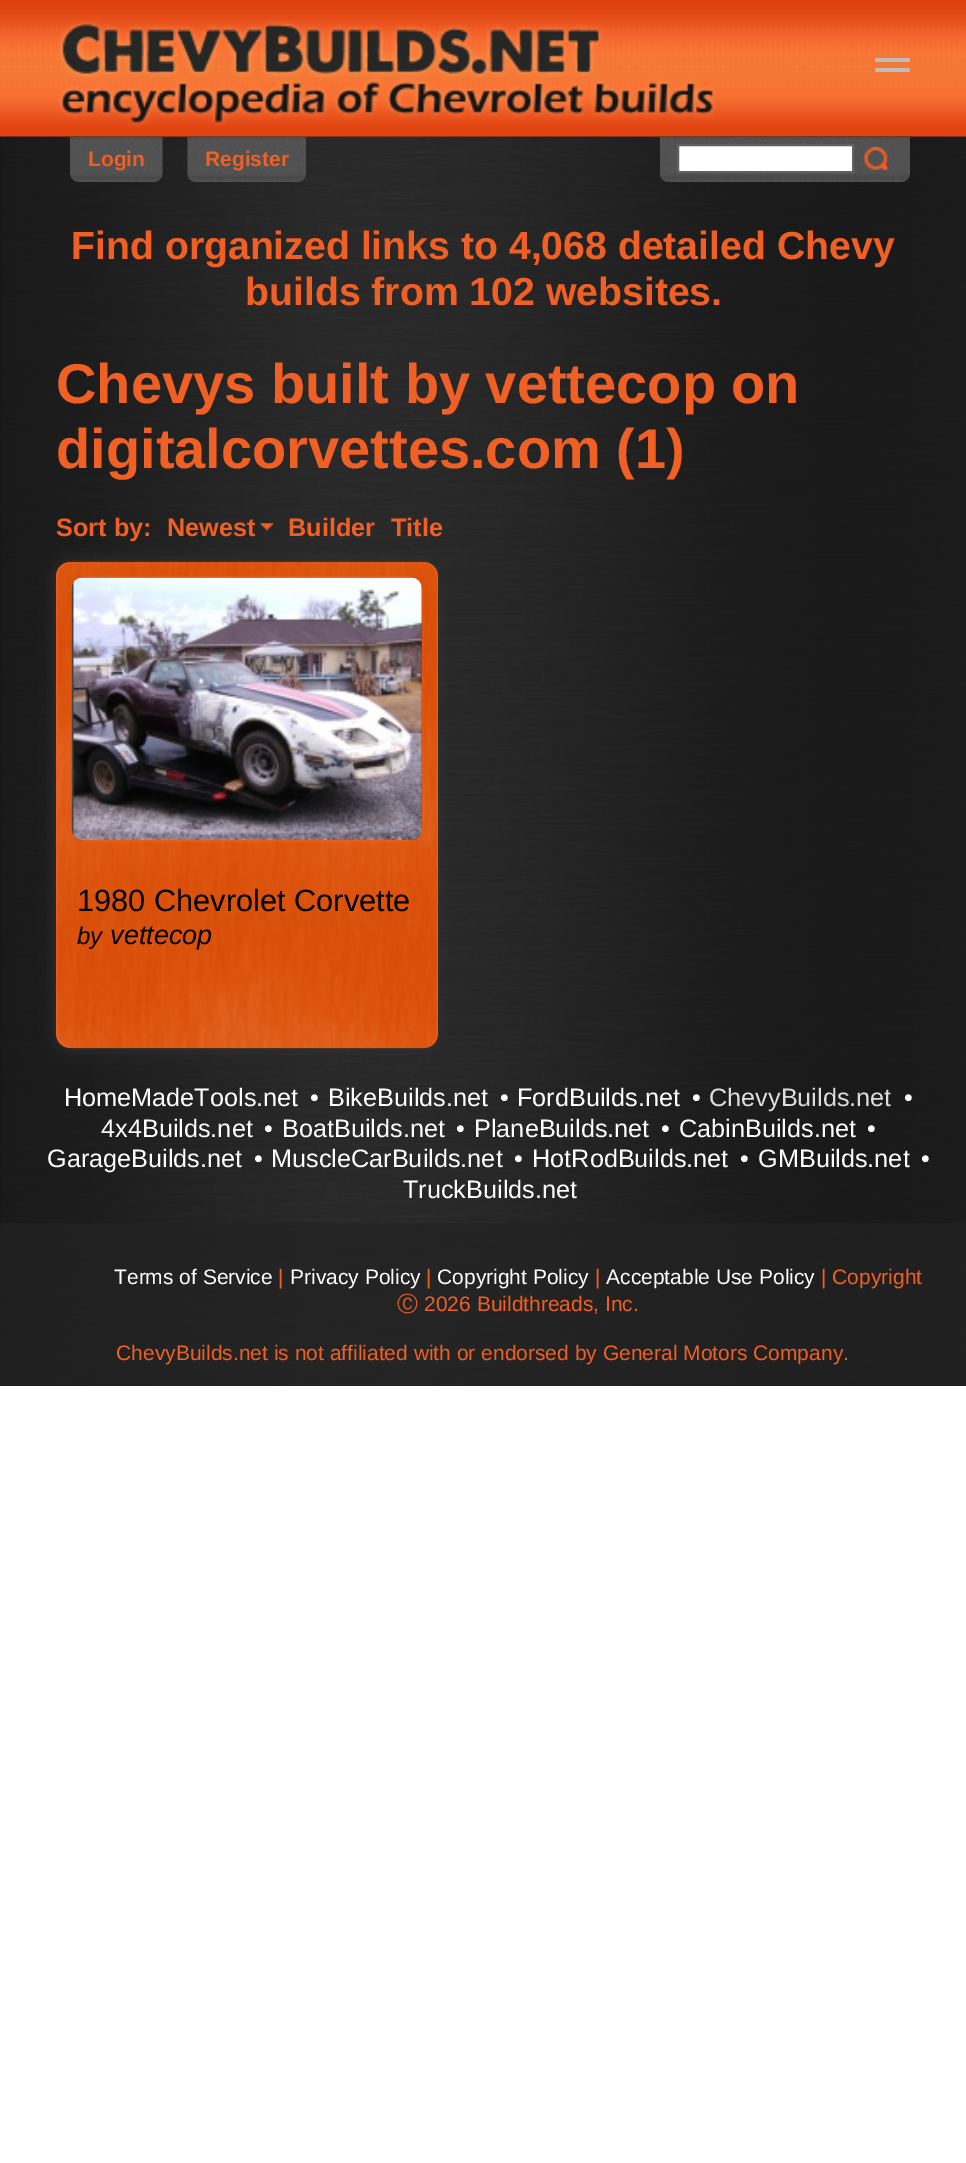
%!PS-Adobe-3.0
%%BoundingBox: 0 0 966 2163
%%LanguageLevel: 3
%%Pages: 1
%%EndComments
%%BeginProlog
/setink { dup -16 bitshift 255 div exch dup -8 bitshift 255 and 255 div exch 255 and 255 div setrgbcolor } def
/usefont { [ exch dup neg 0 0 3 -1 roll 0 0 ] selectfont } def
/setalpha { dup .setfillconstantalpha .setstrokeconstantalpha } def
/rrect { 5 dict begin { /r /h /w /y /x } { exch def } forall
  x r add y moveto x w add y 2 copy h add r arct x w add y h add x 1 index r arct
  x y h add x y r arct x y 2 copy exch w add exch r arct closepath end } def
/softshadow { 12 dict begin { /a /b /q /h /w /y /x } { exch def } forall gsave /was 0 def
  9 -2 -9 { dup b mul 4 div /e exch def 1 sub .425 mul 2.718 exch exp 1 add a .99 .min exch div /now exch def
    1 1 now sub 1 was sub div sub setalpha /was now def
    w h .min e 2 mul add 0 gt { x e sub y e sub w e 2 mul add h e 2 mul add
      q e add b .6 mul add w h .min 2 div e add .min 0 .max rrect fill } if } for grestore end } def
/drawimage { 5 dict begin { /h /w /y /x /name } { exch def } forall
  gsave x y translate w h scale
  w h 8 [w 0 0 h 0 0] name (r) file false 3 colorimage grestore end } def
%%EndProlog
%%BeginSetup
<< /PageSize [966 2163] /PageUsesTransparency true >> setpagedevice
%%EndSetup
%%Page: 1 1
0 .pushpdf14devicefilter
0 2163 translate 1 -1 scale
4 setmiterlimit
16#FFFFFF setink
0 0 966 2163 rectfill
(img1.raw) 0 136 966 1250 drawimage
(img2.raw) 0 0 966 137 drawimage
(img3.raw) 58 20 658 107 drawimage
16#BDBDBD setink
875 58 35 4 2 rrect fill
875 68 35 4 2 rrect fill
(img4.raw) 660 136 250 46 drawimage
16#FFFFFF setink
678 145 moveto 853 145 lineto 853 172 lineto 678 172 lineto closepath gsave fill grestore
16#606262 setink
2 setlinewidth
stroke
(img5.raw) 864 147 24 23 drawimage
(img6.raw) 70 136 93 46 drawimage
/LiberationSans-Bold 21 usefont
16#F06024 setink
88 166 moveto (Login) show
(img7.raw) 187 136 119 46 drawimage
205 166 moveto (Register) show
/LiberationSans-Bold 39.2 usefont
71 259 moveto (Find organized links to 4,068 detailed Chevy) show
245 305 moveto (builds from 102 websites.) show
/LiberationSans-Bold 56 usefont
56 403 moveto (Chevys built by vettecop on) show
56 468 moveto (digitalcorvettes.com \(1\)) show
/LiberationSans-Bold 25.25 usefont
56 536 moveto (Sort by:) show
167 536 moveto (Newest) show
(img8.raw) 260 523 13 8 drawimage
288 536 moveto (Builder) show
391 536 moveto (Title) show
16#333333 setink
56 562 382 486 14 8 1 softshadow
16#F06024 setink
56 562 382 486 14 rrect fill
(img9.raw) 56 561 382 488 drawimage
(img10.raw) 71 577 351 263 drawimage
(img11.raw) 73 577 349 263 drawimage
/LiberationSans-Regular 30.75 usefont
16#000000 setink
77 911 moveto (1980 Chevrolet Corvette) show
/LiberationSans-Italic 24 usefont
77 944 moveto (by) show
/LiberationSans-Italic 27 usefont
110 944 moveto (vettecop) show
/LiberationSans-Regular 25.25 usefont
16#FFFFFF setink
[
    [(HomeMadeTools.net) 64 1106]
    [(•) 310 1106]
    [(BikeBuilds.net) 328 1106]
    [(•) 500 1106]
    [(FordBuilds.net) 517 1106]
    [(•) 692 1106]
] { aload pop moveto show } forall
16#DDDDDD setink
709 1106 moveto (ChevyBuilds.net) show
16#FFFFFF setink
[
    [(•) 904 1106]
    [(4x4Builds.net) 101 1137]
    [(•) 264 1137]
    [(BoatBuilds.net) 282 1137]
    [(•) 456 1137]
    [(PlaneBuilds.net) 474 1137]
    [(•) 661 1137]
    [(CabinBuilds.net) 679 1137]
    [(•) 867 1137]
    [(GarageBuilds.net) 47 1167]
    [(•) 254 1167]
    [(MuscleCarBuilds.net) 271 1167]
    [(•) 514 1167]
    [(HotRodBuilds.net) 532 1167]
    [(•) 740 1167]
    [(GMBuilds.net) 758 1167]
    [(•) 921 1167]
    [(TruckBuilds.net) 403 1198]
] { aload pop moveto show } forall
0.7 setalpha
16#222222 setink
0 1223 966 163 rectfill
/LiberationSans-Regular 21 usefont
1 setalpha
16#FFFFFF setink
114 1284 moveto (Terms of Service) show
16#F06024 setink
278 1284 moveto (|) show
16#FFFFFF setink
290 1284 moveto (Privacy Policy) show
16#F06024 setink
426 1284 moveto (|) show
16#FFFFFF setink
437 1284 moveto (Copyright Policy) show
16#F06024 setink
595 1284 moveto (|) show
16#FFFFFF setink
606 1284 moveto (Acceptable Use Policy) show
16#F06024 setink
821 1284 moveto (| Copyright) show
/WenQuanYiZenHei-Medium 21 usefont
397 1311 moveto (Ⓒ) show
/LiberationSans-Regular 21 usefont
424 1311 moveto (2026 Buildthreads, Inc.) show
116 1360 moveto (ChevyBuilds.net is not affiliated with or endorsed by General Motors Company.) show
.poppdf14devicefilter showpage
%%EOF
